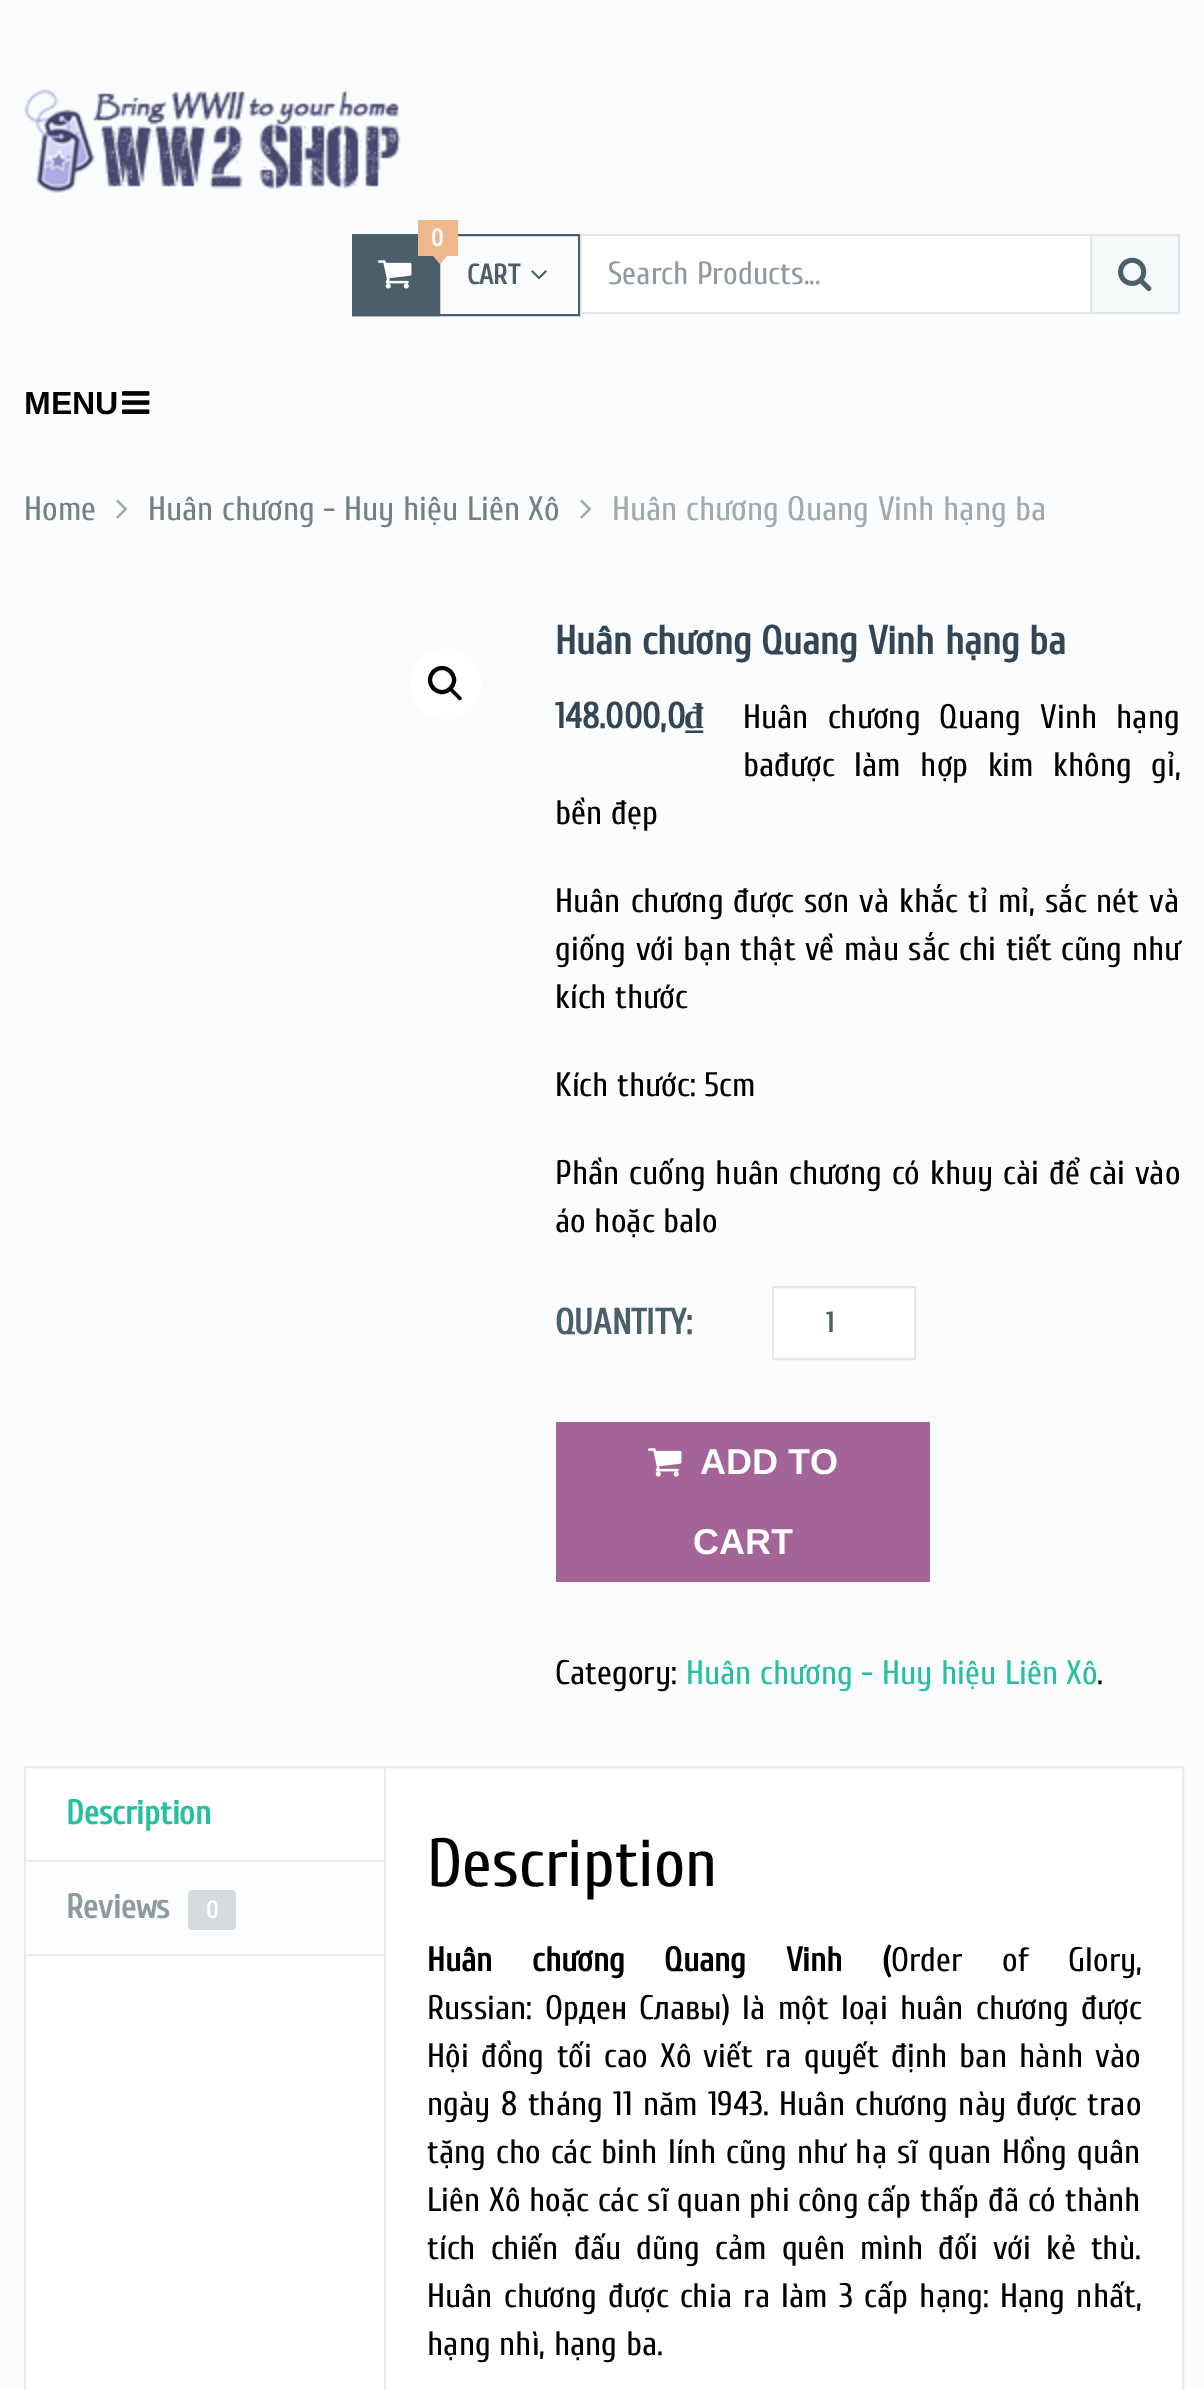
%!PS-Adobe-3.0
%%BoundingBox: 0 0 1204 2390
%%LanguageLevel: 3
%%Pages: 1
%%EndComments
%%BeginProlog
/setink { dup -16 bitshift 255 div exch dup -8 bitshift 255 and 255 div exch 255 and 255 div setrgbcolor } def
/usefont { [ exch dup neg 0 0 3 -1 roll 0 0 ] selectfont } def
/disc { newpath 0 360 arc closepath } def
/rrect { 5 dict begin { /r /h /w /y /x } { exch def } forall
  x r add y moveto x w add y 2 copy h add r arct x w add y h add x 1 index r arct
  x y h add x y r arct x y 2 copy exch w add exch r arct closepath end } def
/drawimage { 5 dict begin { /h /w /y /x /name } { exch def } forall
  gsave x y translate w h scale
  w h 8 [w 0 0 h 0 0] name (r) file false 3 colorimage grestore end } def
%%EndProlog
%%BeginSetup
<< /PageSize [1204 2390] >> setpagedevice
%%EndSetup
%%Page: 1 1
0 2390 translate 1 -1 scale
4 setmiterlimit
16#FAFCFD setink
0 0 1204 2390 rectfill
(img1.raw) 24 89 377 104 drawimage
16#4B5F6B setink
2 setlinewidth
353 235 226 80 rectstroke
353 235 moveto 439 235 lineto 439 315 lineto 353 315 lineto closepath gsave fill grestore
stroke
16#EDB88B setink
418 220 40 36 rectfill
/Cuprum-Bold 24 usefont
16#FFFFFF setink
431 246 moveto (0) show
16#EDB88B setink
430 252 moveto 450 252 lineto 440 264 lineto closepath fill
(img2.raw) 378 260 34 29 drawimage
/Cuprum-Bold 28 usefont
16#4B5F6B setink
467 284 moveto (CART) show
(img3.raw) 531 270 16 10 drawimage
[
    [582 236 508 76 16#FFFFFF]
    [580 234 510 2 16#E0E5E7]
    [580 312 510 2 16#E0E5E7]
    [580 234 2 80 16#E0E5E7]
] { aload pop setink rectfill } forall
/Cuprum-Regular 32 usefont
16#8E9AA2 setink
608 284 moveto (Search Products...) show
16#F6F9FA setink
1091 235 moveto 1179 235 lineto 1179 313 lineto 1091 313 lineto closepath gsave fill grestore
16#E0E5E7 setink
stroke
(img4.raw) 1118 257 34 35 drawimage
/LiberationSans-Bold 32 usefont
16#000000 setink
24 414 moveto (MENU) show
(img5.raw) 122 391 28 23 drawimage
/Cuprum-Regular 34 usefont
16#748087 setink
24 520 moveto (Home) show
(img6.raw) 116 499 12 20 drawimage
148 520 moveto (Huân chương - Huy hiệu Liên Xô) show
(img6.raw) 580 499 12 20 drawimage
16#9FA9B0 setink
612 520 moveto (Huân chương Quang Vinh hạng ba) show
16#FFFFFF setink
446 684 36 disc fill
16#000000 setink
4 setlinewidth
442 680 12 disc stroke
450 688.5 moveto 450.5 687.5 452 687.5 452.5 688.5 curveto 461 697 lineto 462 697.5 462 699 461 699.5 curveto 460.5 700.5 459 700.5 458.5 699.5 curveto 450 691 lineto 449 690.5 449 689 450 688.5 curveto closepath fill
/Cuprum-Bold 40 usefont
16#344655 setink
555 654 moveto (Huân chương Quang Vinh hạng ba) show
/Cuprum-Bold 36 usefont
555 728 moveto (148.000,0) show
/LiberationSerif-Bold 36 usefont
685 728 moveto (₫) show
/Cuprum-Regular 34 usefont
16#000000 setink
743 728 moveto 10.5 0 32 (Huân chương Quang Vinh hạng) widthshow
743 776 moveto 11 0 32 (bađược làm hợp kim không gỉ,) widthshow
555 824 moveto (bền đẹp) show
555 912 moveto 1.5 0 32 (Huân chương được sơn và khắc tỉ mỉ, sắc nét và) widthshow
555 960 moveto 1 0 32 (giống với bạn thật về màu sắc chi tiết cũng như) widthshow
555 1008 moveto (kích thước) show
555 1096 moveto (Kích thước: 5cm) show
555 1184 moveto 1.25 0 32 (Phần cuống huân chương có khuy cài để cài vào) widthshow
555 1232 moveto (áo hoặc balo) show
/Cuprum-Bold 36 usefont
16#4B5F6B setink
555 1334 moveto (QUANTITY:) show
16#FFFFFF setink
773 1287 moveto 915 1287 lineto 915 1359 lineto 773 1359 lineto closepath gsave fill grestore
16#E5E6E6 setink
2 setlinewidth
stroke
/Cuprum-Bold 28 usefont
16#4B5F6B setink
826 1332 moveto (1) show
16#A46497 setink
556 1422 374 160 rectfill
(img7.raw) 648 1448 34 29 drawimage
/LiberationSans-Bold 36 usefont
16#FFFFFF setink
700 1474 moveto (ADD TO) show
693 1554 moveto (CART) show
/Cuprum-Regular 34 usefont
16#000000 setink
555 1684 moveto (Category:) show
16#26BFA1 setink
686 1684 moveto (Huân chương - Huy hiệu Liên Xô) show
16#000000 setink
1097 1684 moveto (.) show
16#FFFFFF setink
25 1767 moveto 1183 1767 lineto 1183 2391 lineto 25 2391 lineto closepath gsave fill grestore
16#EAEBEC setink
stroke
26 1860 358 2 rectfill
/Cuprum-Bold 34 usefont
16#26BFA1 setink
66 1824 moveto (Description) show
16#FCFDFE setink
26 1862 358 92 rectfill
16#EAEBEC setink
26 1954 358 2 rectfill
16#8E9AA2 setink
66 1918 moveto (Reviews) show
16#D7DBDD setink
188 1890 48 40 4 rrect fill
/Cuprum-Bold 24 usefont
16#FFFFFF setink
206 1918 moveto (0) show
16#EAEBEC setink
384 1768 2 622 rectfill
/Cuprum-Regular 68 usefont
16#000000 setink
427 1886 moveto (Description) show
/Cuprum-Bold 34 usefont
427 1971 moveto 31 0 32 (Huân chương Quang Vinh \() widthshow
/Cuprum-Regular 34 usefont
891 1971 moveto 31 0 32 (Order of Glory,) widthshow
427 2019 moveto (Russian:) show
545 2019 moveto 3.75 0 32 (Орден Славы\) là một loại huân chương được) widthshow
427 2067 moveto 3.75 0 32 (Hội đồng tối cao Xô viết ra quyết định ban hành vào) widthshow
427 2115 moveto 1.9 0 32 (ngày 8 tháng 11 năm 1943. Huân chương này được trao) widthshow
427 2163 moveto 1.5 0 32 (tặng cho các binh lính cũng như hạ sĩ quan Hồng quân) widthshow
427 2211 moveto 0.25 0 32 (Liên Xô hoặc các sĩ quan phi công cấp thấp đã có thành) widthshow
427 2259 moveto 6.5 0 32 (tích chiến đấu dũng cảm quên mình đối với kẻ thù.) widthshow
427 2307 moveto 2.75 0 32 (Huân chương được chia ra làm 3 cấp hạng: Hạng nhất,) widthshow
427 2355 moveto (hạng nhì, hạng ba.) show
showpage
%%EOF
